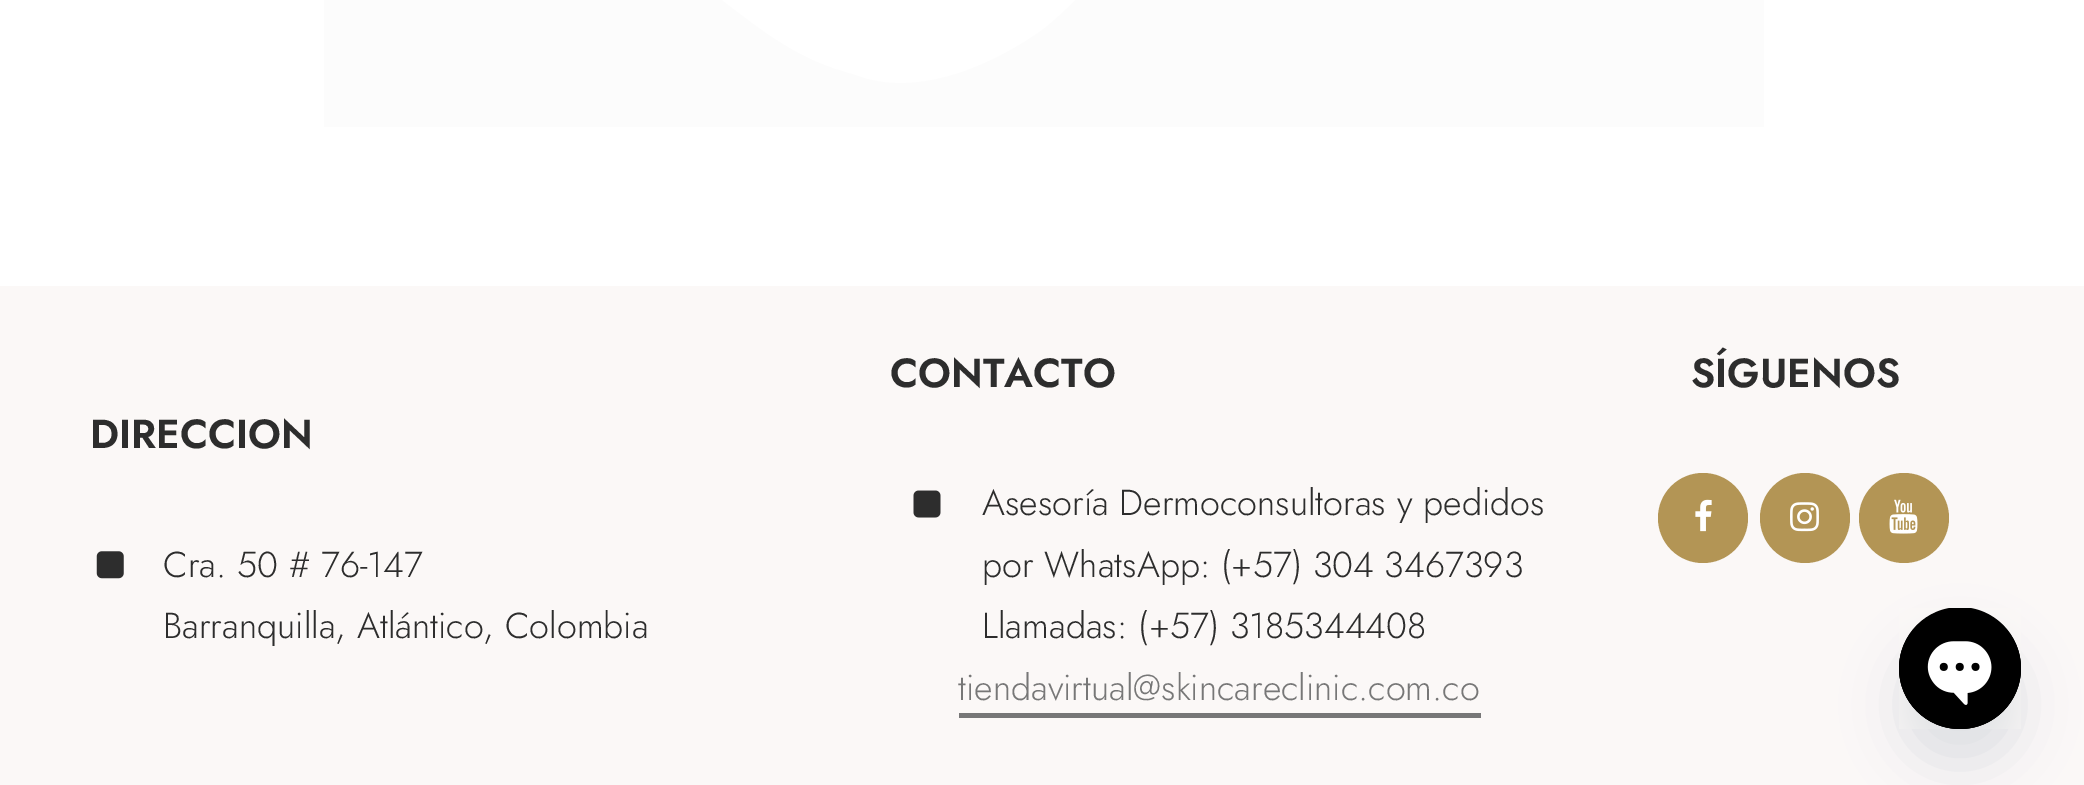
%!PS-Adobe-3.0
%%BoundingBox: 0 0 2084 785
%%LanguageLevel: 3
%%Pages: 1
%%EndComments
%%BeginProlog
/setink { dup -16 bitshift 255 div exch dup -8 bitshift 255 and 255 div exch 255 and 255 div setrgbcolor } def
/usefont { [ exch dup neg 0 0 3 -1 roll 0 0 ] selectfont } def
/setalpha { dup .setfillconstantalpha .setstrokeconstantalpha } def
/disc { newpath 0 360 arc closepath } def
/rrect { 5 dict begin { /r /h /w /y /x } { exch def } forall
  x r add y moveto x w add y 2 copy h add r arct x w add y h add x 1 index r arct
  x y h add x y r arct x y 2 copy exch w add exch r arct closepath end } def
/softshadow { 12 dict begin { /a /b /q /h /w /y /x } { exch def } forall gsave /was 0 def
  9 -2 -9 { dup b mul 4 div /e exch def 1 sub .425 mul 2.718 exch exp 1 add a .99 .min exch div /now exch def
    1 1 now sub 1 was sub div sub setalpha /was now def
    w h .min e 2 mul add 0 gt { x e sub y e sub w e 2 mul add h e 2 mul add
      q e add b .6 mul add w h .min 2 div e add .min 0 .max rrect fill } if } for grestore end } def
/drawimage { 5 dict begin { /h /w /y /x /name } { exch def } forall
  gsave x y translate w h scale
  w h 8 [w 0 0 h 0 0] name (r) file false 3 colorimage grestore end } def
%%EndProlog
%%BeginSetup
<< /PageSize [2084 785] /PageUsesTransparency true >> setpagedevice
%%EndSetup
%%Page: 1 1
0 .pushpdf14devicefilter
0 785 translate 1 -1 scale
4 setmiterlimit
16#FFFFFF setink
0 0 2084 785 rectfill
gsave
324 0 1440 128 rectclip
16#FCFCFC setink
858 76 moveto 912 96 981 72 1038 33 curveto 1094 -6 1206 -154 1277 -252 curveto 1457 -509 1595 -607 1735 -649 curveto 1791 -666 1851 -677 1981 -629 curveto 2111 -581 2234 -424 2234 -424 curveto 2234 127 lineto -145 127 lineto -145 -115 lineto -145 -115 26 -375 231 -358 curveto 325 -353 452 -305 550 -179 curveto 601 -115 674 -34 740 14 curveto 804 64 834 68 858 76 curveto closepath fill
grestore
16#FBF8F7 setink
0 286 2084 499 rectfill
/Jost-SemiBold 40.5 usefont
16#2D2D2D setink
90 448 moveto (DIRECCION) show
(img1.raw) 96 551 28 28 drawimage
/Jost-Light 36 usefont
163 577 moveto (Cra. 50 # 76-147) show
163 638 moveto (Barranquilla, Atlántico, Colombia) show
/Jost-SemiBold 40.5 usefont
890 387 moveto (CONTACTO) show
(img2.raw) 913 490 28 28 drawimage
/Jost-Light 36 usefont
[
    [(Asesoría Dermoconsultoras y pedidos) 982 515]
    [(por WhatsApp: \(+57\) 304 3467393) 982 577]
    [(Llamadas: \(+57\) 3185344408) 982 638]
] { aload pop moveto show } forall
16#777777 setink
958 700 moveto (tiendavirtual@skincareclinic.com.co) show
959 713 522 5 rectfill
/Jost-SemiBold 40.5 usefont
16#2D2D2D setink
1691 387 moveto (SÍGUENOS) show
16#B39555 setink
1703 518 45 disc fill
(img3.raw) 1695 499 17 33 drawimage
1805 518 45 disc fill
(img4.raw) 1790 502 29 30 drawimage
1904 518 45 disc fill
(img5.raw) 1889 499 29 35 drawimage
16#49687E setink
1899 644 122 121 60.5 27 0.16 softshadow
16#000000 setink
1899 608 122 121 60.5 rrect fill
(img6.raw) 1899 608 122 121 drawimage
.poppdf14devicefilter showpage
%%EOF
